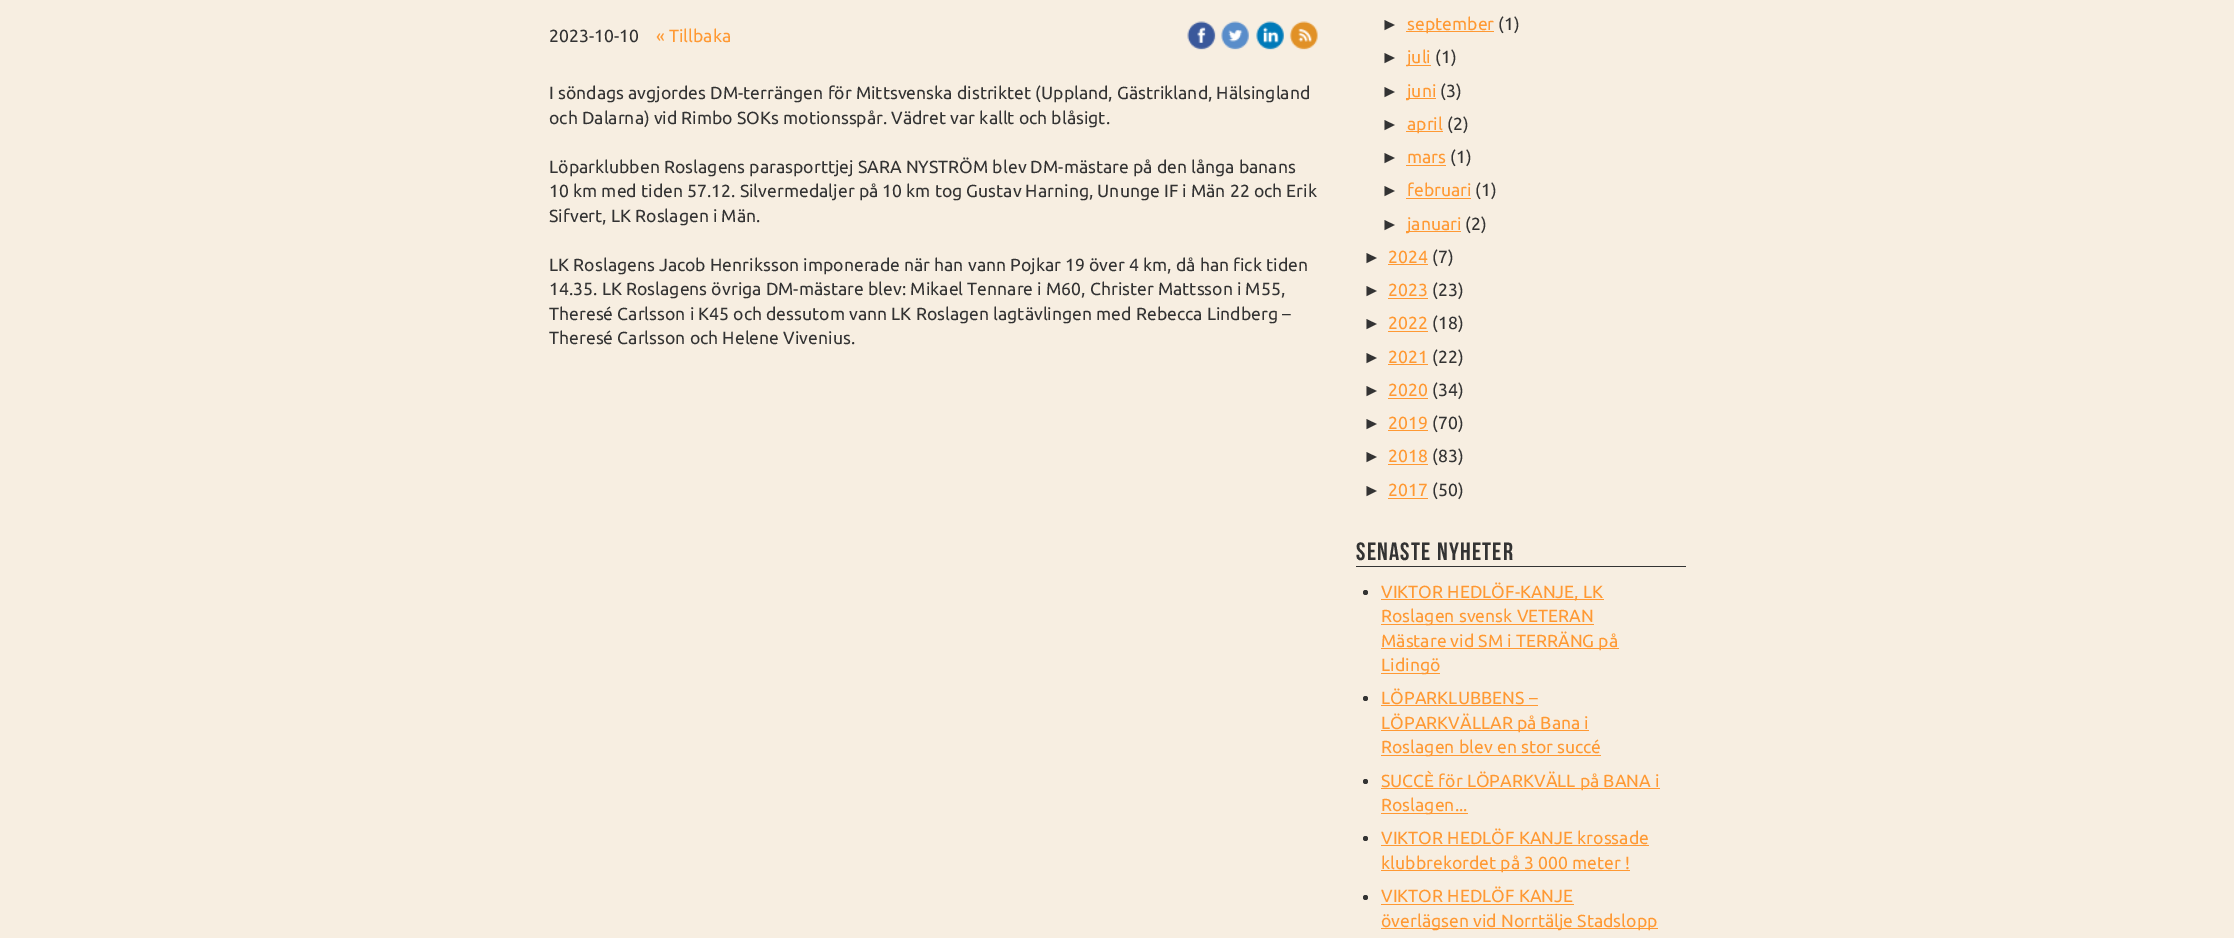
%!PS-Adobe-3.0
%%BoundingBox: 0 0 2234 938
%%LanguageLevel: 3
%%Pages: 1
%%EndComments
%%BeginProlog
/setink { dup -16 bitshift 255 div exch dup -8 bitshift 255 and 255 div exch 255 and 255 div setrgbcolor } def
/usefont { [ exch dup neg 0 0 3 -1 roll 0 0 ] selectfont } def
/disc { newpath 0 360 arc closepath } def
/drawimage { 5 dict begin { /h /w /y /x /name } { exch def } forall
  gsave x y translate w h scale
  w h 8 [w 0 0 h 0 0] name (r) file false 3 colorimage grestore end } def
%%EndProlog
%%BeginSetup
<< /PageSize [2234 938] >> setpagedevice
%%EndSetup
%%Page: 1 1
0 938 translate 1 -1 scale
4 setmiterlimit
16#F7EEE1 setink
0 0 2234 938 rectfill
/Ubuntu-Regular 17.5 usefont
16#333333 setink
549 42 moveto (2023-10-10) show
16#FF9933 setink
656 42 moveto (« Tillbaka) show
(img1.raw) 1187 21 29 29 drawimage
(img2.raw) 1221 21 28 29 drawimage
(img3.raw) 1256 21 28 29 drawimage
(img4.raw) 1289 21 29 29 drawimage
16#333333 setink
[
    [(I söndags avgjordes DM-terrängen för Mittsvenska distriktet \(Uppland, Gästrikland, Hälsingland) 549 99]
    [(och Dalarna\) vid Rimbo SOKs motionsspår. Vädret var kallt och blåsigt.) 549 124]
    [(Löparklubben Roslagens parasporttjej SARA NYSTRÖM blev DM-mästare på den långa banans) 549 173]
    [(10 km med tiden 57.12. Silvermedaljer på 10 km tog Gustav Harning, Ununge IF i Män 22 och Erik) 549 197]
    [(Sifvert, LK Roslagen i Män.) 549 222]
    [(LK Roslagens Jacob Henriksson imponerade när han vann Pojkar 19 över 4 km, då han fick tiden) 549 271]
    [(14.35. LK Roslagens övriga DM-mästare blev: Mikael Tennare i M60, Christer Mattsson i M55,) 549 295]
    [(Theresé Carlsson i K45 och dessutom vann LK Roslagen lagtävlingen med Rebecca Lindberg –) 549 320]
    [(Theresé Carlsson och Helene Vivenius.) 549 344]
] { aload pop moveto show } forall
/LiberationSans-Regular 17.5 usefont
1381 30 moveto (►) show
16#FF9933 setink
1406 31 88 1 rectfill
/Ubuntu-Regular 17.5 usefont
1407 30 moveto (september) show
16#333333 setink
1498 30 moveto (\(1\)) show
/LiberationSans-Regular 17.5 usefont
1381 63 moveto (►) show
16#FF9933 setink
1406 65 25 1 rectfill
/Ubuntu-Regular 17.5 usefont
1407 63 moveto (juli) show
16#333333 setink
1435 63 moveto (\(1\)) show
/LiberationSans-Regular 17.5 usefont
1381 97 moveto (►) show
16#FF9933 setink
1406 98 30 1 rectfill
/Ubuntu-Regular 17.5 usefont
1407 97 moveto (juni) show
16#333333 setink
1440 97 moveto (\(3\)) show
/LiberationSans-Regular 17.5 usefont
1381 130 moveto (►) show
16#FF9933 setink
1406 131 37 1 rectfill
/Ubuntu-Regular 17.5 usefont
1407 130 moveto (april) show
16#333333 setink
1447 130 moveto (\(2\)) show
/LiberationSans-Regular 17.5 usefont
1381 163 moveto (►) show
/Ubuntu-Regular 17.5 usefont
16#FF9933 setink
1407 163 moveto (mars) show
1406 165 40 1 rectfill
16#333333 setink
1450 163 moveto (\(1\)) show
/LiberationSans-Regular 17.5 usefont
1381 196 moveto (►) show
/Ubuntu-Regular 17.5 usefont
16#FF9933 setink
1407 196 moveto (februari) show
1406 198 65 1 rectfill
16#333333 setink
1475 196 moveto (\(1\)) show
/LiberationSans-Regular 17.5 usefont
1381 230 moveto (►) show
16#FF9933 setink
1406 231 55 1 rectfill
/Ubuntu-Regular 17.5 usefont
1407 230 moveto (januari) show
16#333333 setink
1465 230 moveto (\(2\)) show
/LiberationSans-Regular 17.5 usefont
1363 263 moveto (►) show
/Ubuntu-Regular 17.5 usefont
16#FF9933 setink
1388 263 moveto (2024) show
1388 264 40 1 rectfill
16#333333 setink
1432 263 moveto (\(7\)) show
/LiberationSans-Regular 17.5 usefont
1363 296 moveto (►) show
/Ubuntu-Regular 17.5 usefont
16#FF9933 setink
1388 296 moveto (2023) show
1388 298 40 1 rectfill
16#333333 setink
1432 296 moveto (\(23\)) show
/LiberationSans-Regular 17.5 usefont
1363 329 moveto (►) show
/Ubuntu-Regular 17.5 usefont
16#FF9933 setink
1388 329 moveto (2022) show
1388 331 40 1 rectfill
16#333333 setink
1432 329 moveto (\(18\)) show
/LiberationSans-Regular 17.5 usefont
1363 363 moveto (►) show
/Ubuntu-Regular 17.5 usefont
16#FF9933 setink
1388 363 moveto (2021) show
1388 364 40 1 rectfill
16#333333 setink
1432 363 moveto (\(22\)) show
/LiberationSans-Regular 17.5 usefont
1363 396 moveto (►) show
/Ubuntu-Regular 17.5 usefont
16#FF9933 setink
1388 396 moveto (2020) show
1388 398 40 1 rectfill
16#333333 setink
1432 396 moveto (\(34\)) show
/LiberationSans-Regular 17.5 usefont
1363 429 moveto (►) show
/Ubuntu-Regular 17.5 usefont
16#FF9933 setink
1388 429 moveto (2019) show
1388 430 40 1 rectfill
16#333333 setink
1432 429 moveto (\(70\)) show
/LiberationSans-Regular 17.5 usefont
1363 462 moveto (►) show
/Ubuntu-Regular 17.5 usefont
16#FF9933 setink
1388 462 moveto (2018) show
1388 464 40 1 rectfill
16#333333 setink
1432 462 moveto (\(83\)) show
/LiberationSans-Regular 17.5 usefont
1363 496 moveto (►) show
/Ubuntu-Regular 17.5 usefont
16#FF9933 setink
1388 496 moveto (2017) show
1388 498 40 1 rectfill
16#333333 setink
1432 496 moveto (\(50\)) show
1356 566 330 1 rectfill
/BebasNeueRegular-Regular 25 usefont
1356 560 moveto 1.25 0 (Senaste nyheter) ashow
1365.5 592.5 2.5 disc fill
16#FF9933 setink
1381 599 223 1 rectfill
/Ubuntu-Regular 17.5 usefont
1381 598 moveto (VIKTOR HEDLÖF-KANJE, LK) show
1381 624 213 1 rectfill
1381 622 moveto (Roslagen svensk VETERAN) show
1381 648 238 1 rectfill
1381 647 moveto (Mästare vid SM i TERRÄNG på) show
1381 673 59 1 rectfill
1381 671 moveto (Lidingö) show
16#333333 setink
1365.5 698.5 2.5 disc fill
16#FF9933 setink
1381 704 moveto (LÖPARKLUBBENS –) show
1381 705 157 1 rectfill
1381 730 208 1 rectfill
1381 729 moveto (LÖPARKVÄLLAR på Bana i) show
1381 755 220 1 rectfill
1381 753 moveto (Roslagen blev en stor succé) show
16#333333 setink
1365.5 781.5 2.5 disc fill
16#FF9933 setink
1381 788 279 1 rectfill
1381 787 moveto (SUCCÈ för LÖPARKVÄLL på BANA i) show
1381 813 87 1 rectfill
1381 811 moveto (Roslagen...) show
16#333333 setink
1365.5 838.5 2.5 disc fill
16#FF9933 setink
1381 844 moveto (VIKTOR HEDLÖF KANJE krossade) show
1381 845 268 1 rectfill
1381 870 249 1 rectfill
1381 869 moveto (klubbrekordet på 3 000 meter !) show
16#333333 setink
1365.5 897.5 2.5 disc fill
16#FF9933 setink
1381 902 moveto (VIKTOR HEDLÖF KANJE) show
1381 904 193 1 rectfill
1381 928 277 1 rectfill
1381 927 moveto (överlägsen vid Norrtälje Stadslopp) show
showpage
%%EOF
